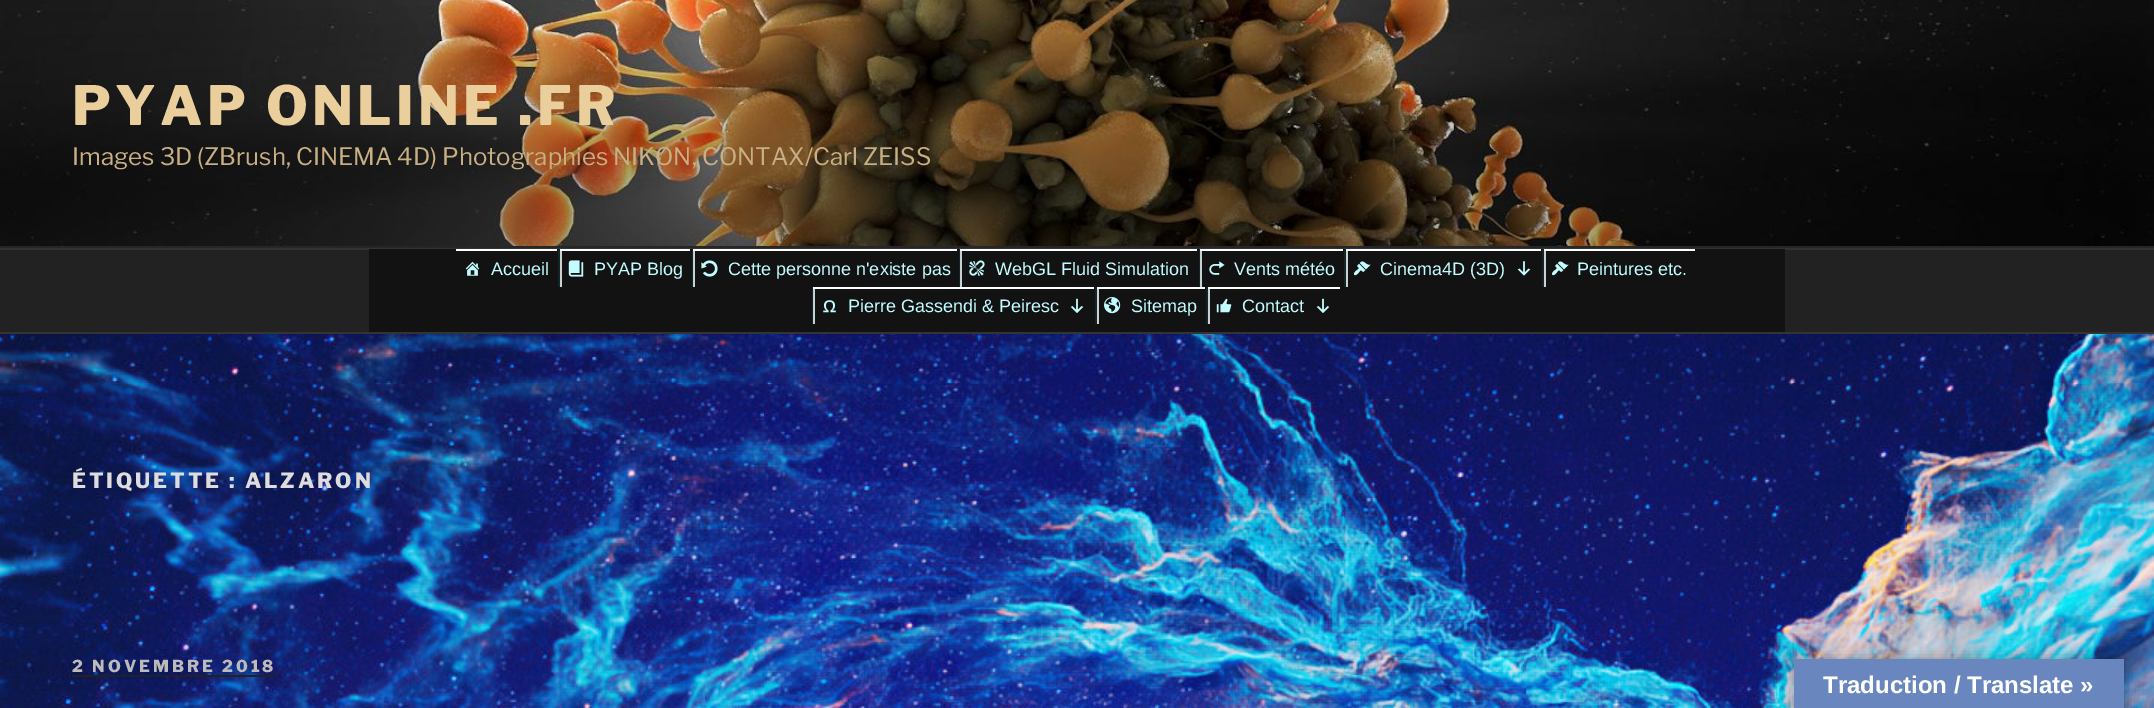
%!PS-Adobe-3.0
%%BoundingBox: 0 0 2154 708
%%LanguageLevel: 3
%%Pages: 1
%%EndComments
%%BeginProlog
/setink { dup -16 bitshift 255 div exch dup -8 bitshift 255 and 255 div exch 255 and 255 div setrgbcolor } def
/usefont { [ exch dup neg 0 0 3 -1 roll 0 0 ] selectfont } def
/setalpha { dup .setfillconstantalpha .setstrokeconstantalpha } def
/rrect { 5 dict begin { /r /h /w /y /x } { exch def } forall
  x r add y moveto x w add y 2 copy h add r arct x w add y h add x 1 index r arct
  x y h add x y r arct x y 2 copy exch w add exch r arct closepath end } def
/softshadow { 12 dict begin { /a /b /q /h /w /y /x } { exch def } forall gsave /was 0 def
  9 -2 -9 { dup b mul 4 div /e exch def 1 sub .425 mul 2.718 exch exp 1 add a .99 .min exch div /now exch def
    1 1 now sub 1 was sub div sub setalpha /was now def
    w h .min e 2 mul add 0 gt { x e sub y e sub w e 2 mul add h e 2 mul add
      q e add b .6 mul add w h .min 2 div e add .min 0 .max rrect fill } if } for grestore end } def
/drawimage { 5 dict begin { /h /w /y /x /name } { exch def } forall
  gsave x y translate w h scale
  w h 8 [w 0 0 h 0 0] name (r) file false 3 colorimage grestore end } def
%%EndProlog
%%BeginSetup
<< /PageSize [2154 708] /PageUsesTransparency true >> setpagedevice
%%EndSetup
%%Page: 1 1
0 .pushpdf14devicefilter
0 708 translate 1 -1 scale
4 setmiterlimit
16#262626 setink
0 0 2154 708 rectfill
(img1.raw) 0 0 2154 246 drawimage
/LibreFranklin-ExtraBold 54 usefont
16#EACF9D setink
72 125 moveto 4.3 0 (PYAP ONLINE .FR) ashow
/LibreFranklin-Regular 24 usefont
16#C8AF84 setink
72 165 moveto (Images 3D \(ZBrush, CINEMA 4D\) Photographies NIKON, CONTAX/Carl ZEISS) show
[
    [0 250 2154 82 16#222222]
    [0 248 2154 2 16#333333]
    [0 332 2154 2 16#333333]
    [369 249 1416 83 16#121212]
    [812 287 1 37 16#10272A]
    [1199 249 1 38 16#10272A]
    [959 249 1 38 16#10272A]
    [692 249 1 38 16#10272A]
    [456 249 101 2 16#FFFFFF]
] { aload pop setink rectfill } forall
(img2.raw) 465 261 15 15 drawimage
/LiberationSans-Regular 18 usefont
16#C2FCFF setink
491 275 moveto (Accueil) show
[
    [560 249 2 38 16#D0D0D0]
    [558 249 2 38 16#10272A]
    [560 249 130 2 16#FFFFFF]
] { aload pop setink rectfill } forall
(img3.raw) 568 260 16 17 drawimage
16#C2FCFF setink
594 275 moveto (PYAP Blog) show
[
    [694 249 1 38 16#D0D0D0]
    [693 249 1 38 16#BBD2D5]
    [693 249 264 2 16#FFFFFF]
] { aload pop setink rectfill } forall
(img4.raw) 701 260 17 17 drawimage
16#C2FCFF setink
728 275 moveto (Cette personne n'existe pas) show
[
    [961 249 1 38 16#D0D0D0]
    [960 249 1 38 16#BBD2D5]
    [960 249 237 2 16#FFFFFF]
] { aload pop setink rectfill } forall
(img5.raw) 969 260 16 16 drawimage
16#C2FCFF setink
995 275 moveto (WebGL Fluid Simulation) show
[
    [1201 249 1 38 16#D0D0D0]
    [1200 249 1 38 16#BBD2D5]
    [1200 249 143 2 16#FFFFFF]
] { aload pop setink rectfill } forall
(img6.raw) 1209 261 16 14 drawimage
16#C2FCFF setink
1234 275 moveto (Vents météo) show
[
    [1346 249 2 38 16#D0D0D0]
    [1344 249 2 38 16#10272A]
    [1346 249 195 2 16#FFFFFF]
] { aload pop setink rectfill } forall
(img7.raw) 1354 261 17 15 drawimage
16#C2FCFF setink
1380 275 moveto (Cinema4D \(3D\)) show
(img8.raw) 1517 261 14 15 drawimage
[
    [1544 249 2 38 16#D0D0D0]
    [1542 249 2 38 16#10272A]
    [1544 249 151 2 16#FFFFFF]
] { aload pop setink rectfill } forall
(img7.raw) 1552 261 17 15 drawimage
16#C2FCFF setink
1577 275 moveto (Peintures etc.) show
[
    [814 287 1 37 16#D0D0D0]
    [813 287 1 37 16#BBD2D5]
    [813 287 281 2 16#FFFFFF]
] { aload pop setink rectfill } forall
(img9.raw) 823 300 13 13 drawimage
16#C2FCFF setink
848 312 moveto (Pierre Gassendi & Peiresc) show
(img10.raw) 1070 298 14 15 drawimage
[
    [1097 287 2 37 16#D0D0D0]
    [1095 287 2 37 16#10272A]
    [1097 287 108 2 16#FFFFFF]
] { aload pop setink rectfill } forall
(img11.raw) 1104 297 17 17 drawimage
16#C2FCFF setink
1131 312 moveto (Sitemap) show
[
    [1208 287 2 37 16#D0D0D0]
    [1206 287 2 37 16#10272A]
    [1208 287 132 2 16#FFFFFF]
] { aload pop setink rectfill } forall
(img12.raw) 1216 298 16 15 drawimage
16#C2FCFF setink
1242 312 moveto (Contact) show
(img10.raw) 1316 298 14 15 drawimage
(img13.raw) 0 334 2154 374 drawimage
/LibreFranklin-ExtraBold 21 usefont
16#DDDDDD setink
72 488 moveto 2.9 0 (ÉTIQUETTE : ALZARON) ashow
/LibreFranklin-ExtraBold 16.5 usefont
16#BBBBBB setink
72 672 moveto 3 0 (2 NOVEMBRE 2018) ashow
16#222222 setink
72 675 206 2 rectfill
16#000000 setink
1794 659 330 49 0 7 0.3 softshadow
16#6987BE setink
1794 659 330 49 rectfill
/LiberationSans-Bold 24 usefont
16#FFFFFF setink
1823 693 moveto (Traduction / Translate ») show
.poppdf14devicefilter showpage
%%EOF
